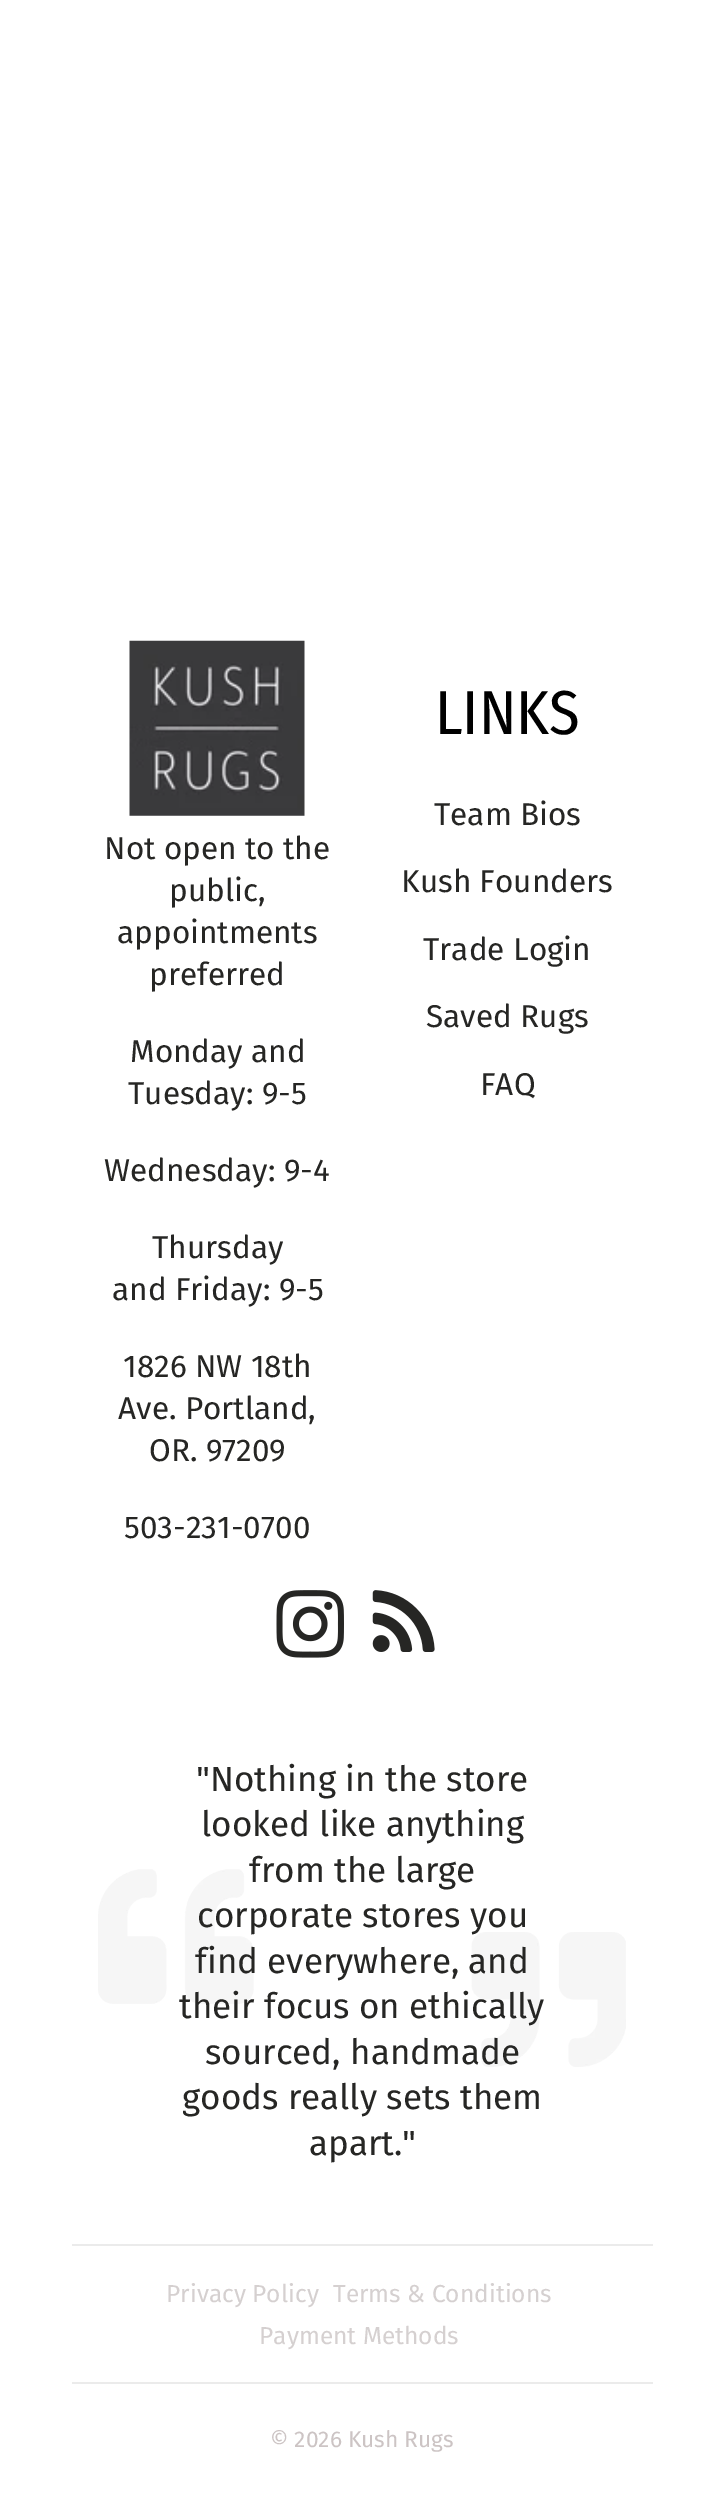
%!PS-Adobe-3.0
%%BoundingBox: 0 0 723 2494
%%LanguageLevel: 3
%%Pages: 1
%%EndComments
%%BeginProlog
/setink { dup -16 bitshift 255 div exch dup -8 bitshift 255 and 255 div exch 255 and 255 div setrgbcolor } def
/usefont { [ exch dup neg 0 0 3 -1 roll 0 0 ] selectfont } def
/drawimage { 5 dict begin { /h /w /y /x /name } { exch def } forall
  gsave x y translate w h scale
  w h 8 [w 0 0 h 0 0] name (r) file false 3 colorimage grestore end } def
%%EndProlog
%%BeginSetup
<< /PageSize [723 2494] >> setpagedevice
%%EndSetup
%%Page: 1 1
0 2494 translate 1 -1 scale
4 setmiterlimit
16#FFFFFF setink
0 0 723 2494 rectfill
(img1.raw) 129 640 176 176 drawimage
/FiraSans-Regular 31.5 usefont
16#262624 setink
[
    [(Not open to the) 104 859]
    [(public,) 169 901]
    [(appointments) 117 943]
    [(preferred) 149 985]
    [(Monday and) 130 1062]
    [(Tuesday: 9-5) 128 1104]
    [(Wednesday: 9-4) 104 1181]
    [(Thursday) 152 1258]
    [(and Friday: 9-5) 112 1300]
    [(1826 NW 18th) 123 1377]
    [(Ave. Portland,) 118 1419]
    [(OR. 97209) 149 1461]
    [(503-231-0700) 124 1538]
] { aload pop moveto show } forall
/FiraSansCondensed-Regular 62 usefont
16#000000 setink
435 734 moveto (LINKS) show
/FiraSans-Regular 31.5 usefont
16#262624 setink
[
    [(Team Bios) 434 825]
    [(Kush Founders) 401 892]
    [(Trade Login) 423 960]
    [(Saved Rugs) 426 1027]
    [(FAQ) 480 1095]
] { aload pop moveto show } forall
(img2.raw) 276 1590 68 68 drawimage
(img3.raw) 372 1590 63 62 drawimage
(img4.raw) 98 1869 528 198 drawimage
/FiraSans-Regular 35 usefont
[
    [("Nothing in the store) 196 1791]
    [(looked like anything) 201 1836]
    [(from the large) 249 1882]
    [(corporate stores you) 197 1927]
    [(find everywhere, and) 195 1973]
    [(their focus on ethically) 179 2018]
    [(sourced, handmade) 205 2064]
    [(goods really sets them) 182 2109]
    [(apart.") 309 2155]
] { aload pop moveto show } forall
16#EBEBEB setink
72 2244 581 2 rectfill
72 2382 581 2 rectfill
/FiraSans-Regular 24.5 usefont
16#D5D0D0 setink
[
    [(Privacy Policy) 166 2302]
    [(Terms & Conditions) 333 2302]
    [(Payment Methods) 259 2344]
] { aload pop moveto show } forall
/FiraSans-Regular 22.75 usefont
16#CCC4C4 setink
270 2447 moveto (© 2026 Kush Rugs) show
showpage
%%EOF
